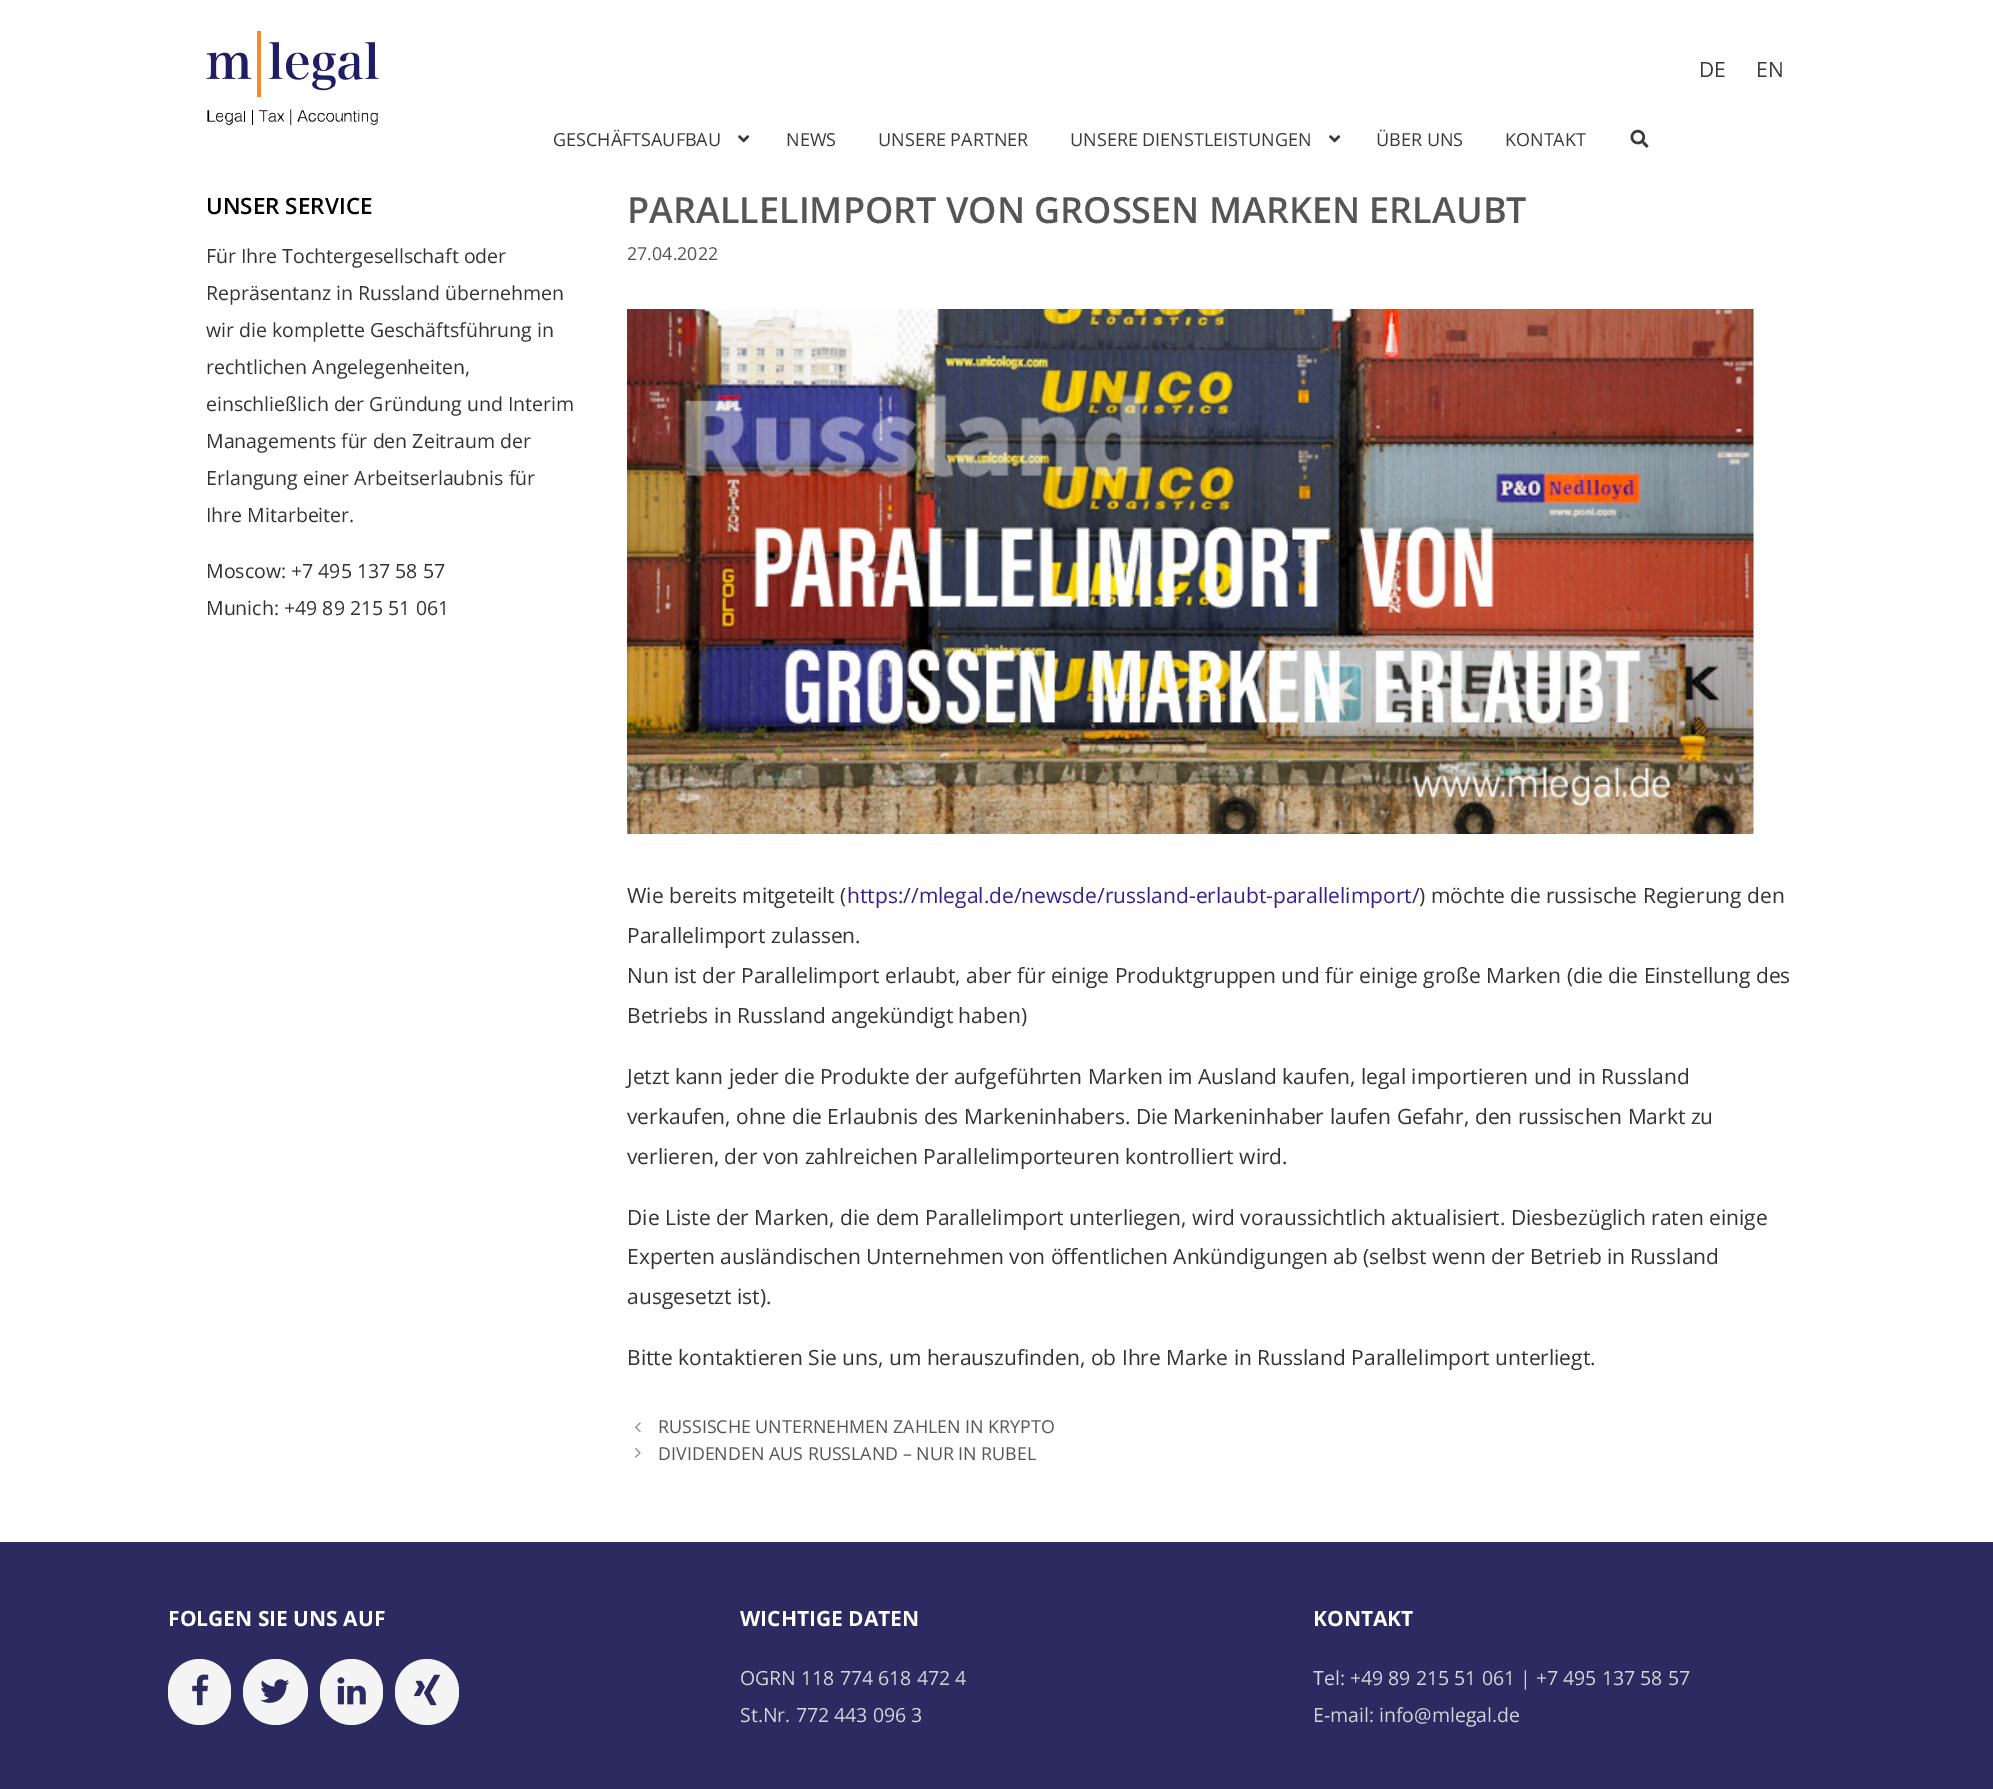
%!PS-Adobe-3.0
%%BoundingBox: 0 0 1993 1789
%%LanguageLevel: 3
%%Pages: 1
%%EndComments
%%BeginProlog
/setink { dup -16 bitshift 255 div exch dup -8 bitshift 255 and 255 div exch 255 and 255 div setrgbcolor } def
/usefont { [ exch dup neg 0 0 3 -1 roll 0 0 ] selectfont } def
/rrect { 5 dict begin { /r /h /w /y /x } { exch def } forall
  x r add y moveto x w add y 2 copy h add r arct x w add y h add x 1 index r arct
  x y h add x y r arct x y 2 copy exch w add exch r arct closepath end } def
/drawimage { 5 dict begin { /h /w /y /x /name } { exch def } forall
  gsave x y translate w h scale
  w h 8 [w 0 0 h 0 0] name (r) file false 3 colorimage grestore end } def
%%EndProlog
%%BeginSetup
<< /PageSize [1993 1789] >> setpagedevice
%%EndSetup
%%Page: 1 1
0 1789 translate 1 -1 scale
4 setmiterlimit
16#FFFFFF setink
0 0 1993 1789 rectfill
(img1.raw) 206 31 173 95 drawimage
/OpenSans-Regular 21 usefont
16#3A3A3A setink
1699 77 moveto (DE) show
1756 77 moveto (EN) show
/OpenSans-Regular 18 usefont
553 146 moveto (GESCHÄFTSAUFBAU) show
(img2.raw) 738 135 12 8 drawimage
[
    [(NEWS) 786 146]
    [(UNSERE PARTNER) 878 146]
    [(UNSERE DIENSTLEISTUNGEN) 1070 146]
] { aload pop moveto show } forall
(img2.raw) 1329 135 12 8 drawimage
1376 146 moveto (ÜBER UNS) show
1505 146 moveto (KONTAKT) show
(img3.raw) 1630 129 19 19 drawimage
/OpenSans-SemiBold 22.5 usefont
16#000000 setink
206 214 moveto (UNSER SERVICE) show
/OpenSans-Regular 19.5 usefont
16#333333 setink
[
    [(Für Ihre Tochtergesellschaft oder) 206 263]
    [(Repräsentanz in Russland übernehmen) 206 300]
    [(wir die komplette Geschäftsführung in) 206 337]
    [(rechtlichen Angelegenheiten,) 206 374]
    [(einschließlich der Gründung und Interim) 206 411]
    [(Managements für den Zeitraum der) 206 448]
    [(Erlangung einer Arbeitserlaubnis für) 206 485]
    [(Ihre Mitarbeiter.) 206 522]
    [(Moscow: +7 495 137 58 57) 206 578]
    [(Munich: +49 89 215 51 061) 206 615]
] { aload pop moveto show } forall
/OpenSans-SemiBold 36 usefont
16#555555 setink
627 223 moveto (PARALLELIMPORT VON GROSSEN MARKEN ERLAUBT) show
/OpenSans-Regular 17.85 usefont
627 260 moveto (27.04.2022) show
(img4.raw) 627 309 1127 525 drawimage
/OpenSans-Regular 21 usefont
16#333333 setink
627 903 moveto (Wie bereits mitgeteilt \() show
16#38208E setink
847 903 moveto (https://mlegal.de/newsde/russland-erlaubt-parallelimport/) show
16#333333 setink
[
    [(\) möchte die russische Regierung den) 1419 903]
    [(Parallelimport zulassen.) 627 943]
    [(Nun ist der Parallelimport erlaubt, aber für einige Produktgruppen und für einige große Marken \(die die Einstellung des) 627 983]
    [(Betriebs in Russland angekündigt haben\)) 627 1023]
    [(Jetzt kann jeder die Produkte der aufgeführten Marken im Ausland kaufen, legal importieren und in Russland) 627 1084]
    [(verkaufen, ohne die Erlaubnis des Markeninhabers. Die Markeninhaber laufen Gefahr, den russischen Markt zu) 627 1124]
    [(verlieren, der von zahlreichen Parallelimporteuren kontrolliert wird.) 627 1164]
    [(Die Liste der Marken, die dem Parallelimport unterliegen, wird voraussichtlich aktualisiert. Diesbezüglich raten einige) 627 1225]
    [(Experten ausländischen Unternehmen von öffentlichen Ankündigungen ab \(selbst wenn der Betrieb in Russland) 627 1264]
    [(ausgesetzt ist\).) 627 1304]
    [(Bitte kontaktieren Sie uns, um herauszufinden, ob Ihre Marke in Russland Parallelimport unterliegt.) 627 1365]
] { aload pop moveto show } forall
(img5.raw) 635 1422 6 11 drawimage
/OpenSans-Regular 17.85 usefont
16#555555 setink
658 1433 moveto (RUSSISCHE UNTERNEHMEN ZAHLEN IN KRYPTO) show
(img6.raw) 635 1447 6 11 drawimage
658 1460 moveto (DIVIDENDEN AUS RUSSLAND – NUR IN RUBEL) show
16#2C2A60 setink
0 1542 1993 247 rectfill
/OpenSans-Bold 21 usefont
16#FFFFFF setink
168 1626 moveto (FOLGEN SIE UNS AUF) show
16#F4F4F4 setink
168 1659 63 66 31.5 rrect fill
(img7.raw) 192 1674 17 32 drawimage
243 1659 65 66 32.5 rrect fill
(img8.raw) 260 1679 30 24 drawimage
320 1659 63 66 31.5 rrect fill
(img9.raw) 337 1677 29 28 drawimage
395 1659 64 66 32 rrect fill
(img10.raw) 414 1674 26 32 drawimage
16#FFFFFF setink
740 1626 moveto (WICHTIGE DATEN) show
/OpenSans-Regular 19.5 usefont
16#D1D6D9 setink
740 1685 moveto (OGRN 118 774 618 472 4) show
740 1722 moveto (St.Nr. 772 443 096 3) show
/OpenSans-Bold 21 usefont
16#FFFFFF setink
1313 1626 moveto (KONTAKT) show
/OpenSans-Regular 19.5 usefont
16#D1D6D9 setink
1313 1685 moveto (Tel: +49 89 215 51 061 | +7 495 137 58 57) show
1313 1722 moveto (E-mail: info@mlegal.de) show
showpage
%%EOF
